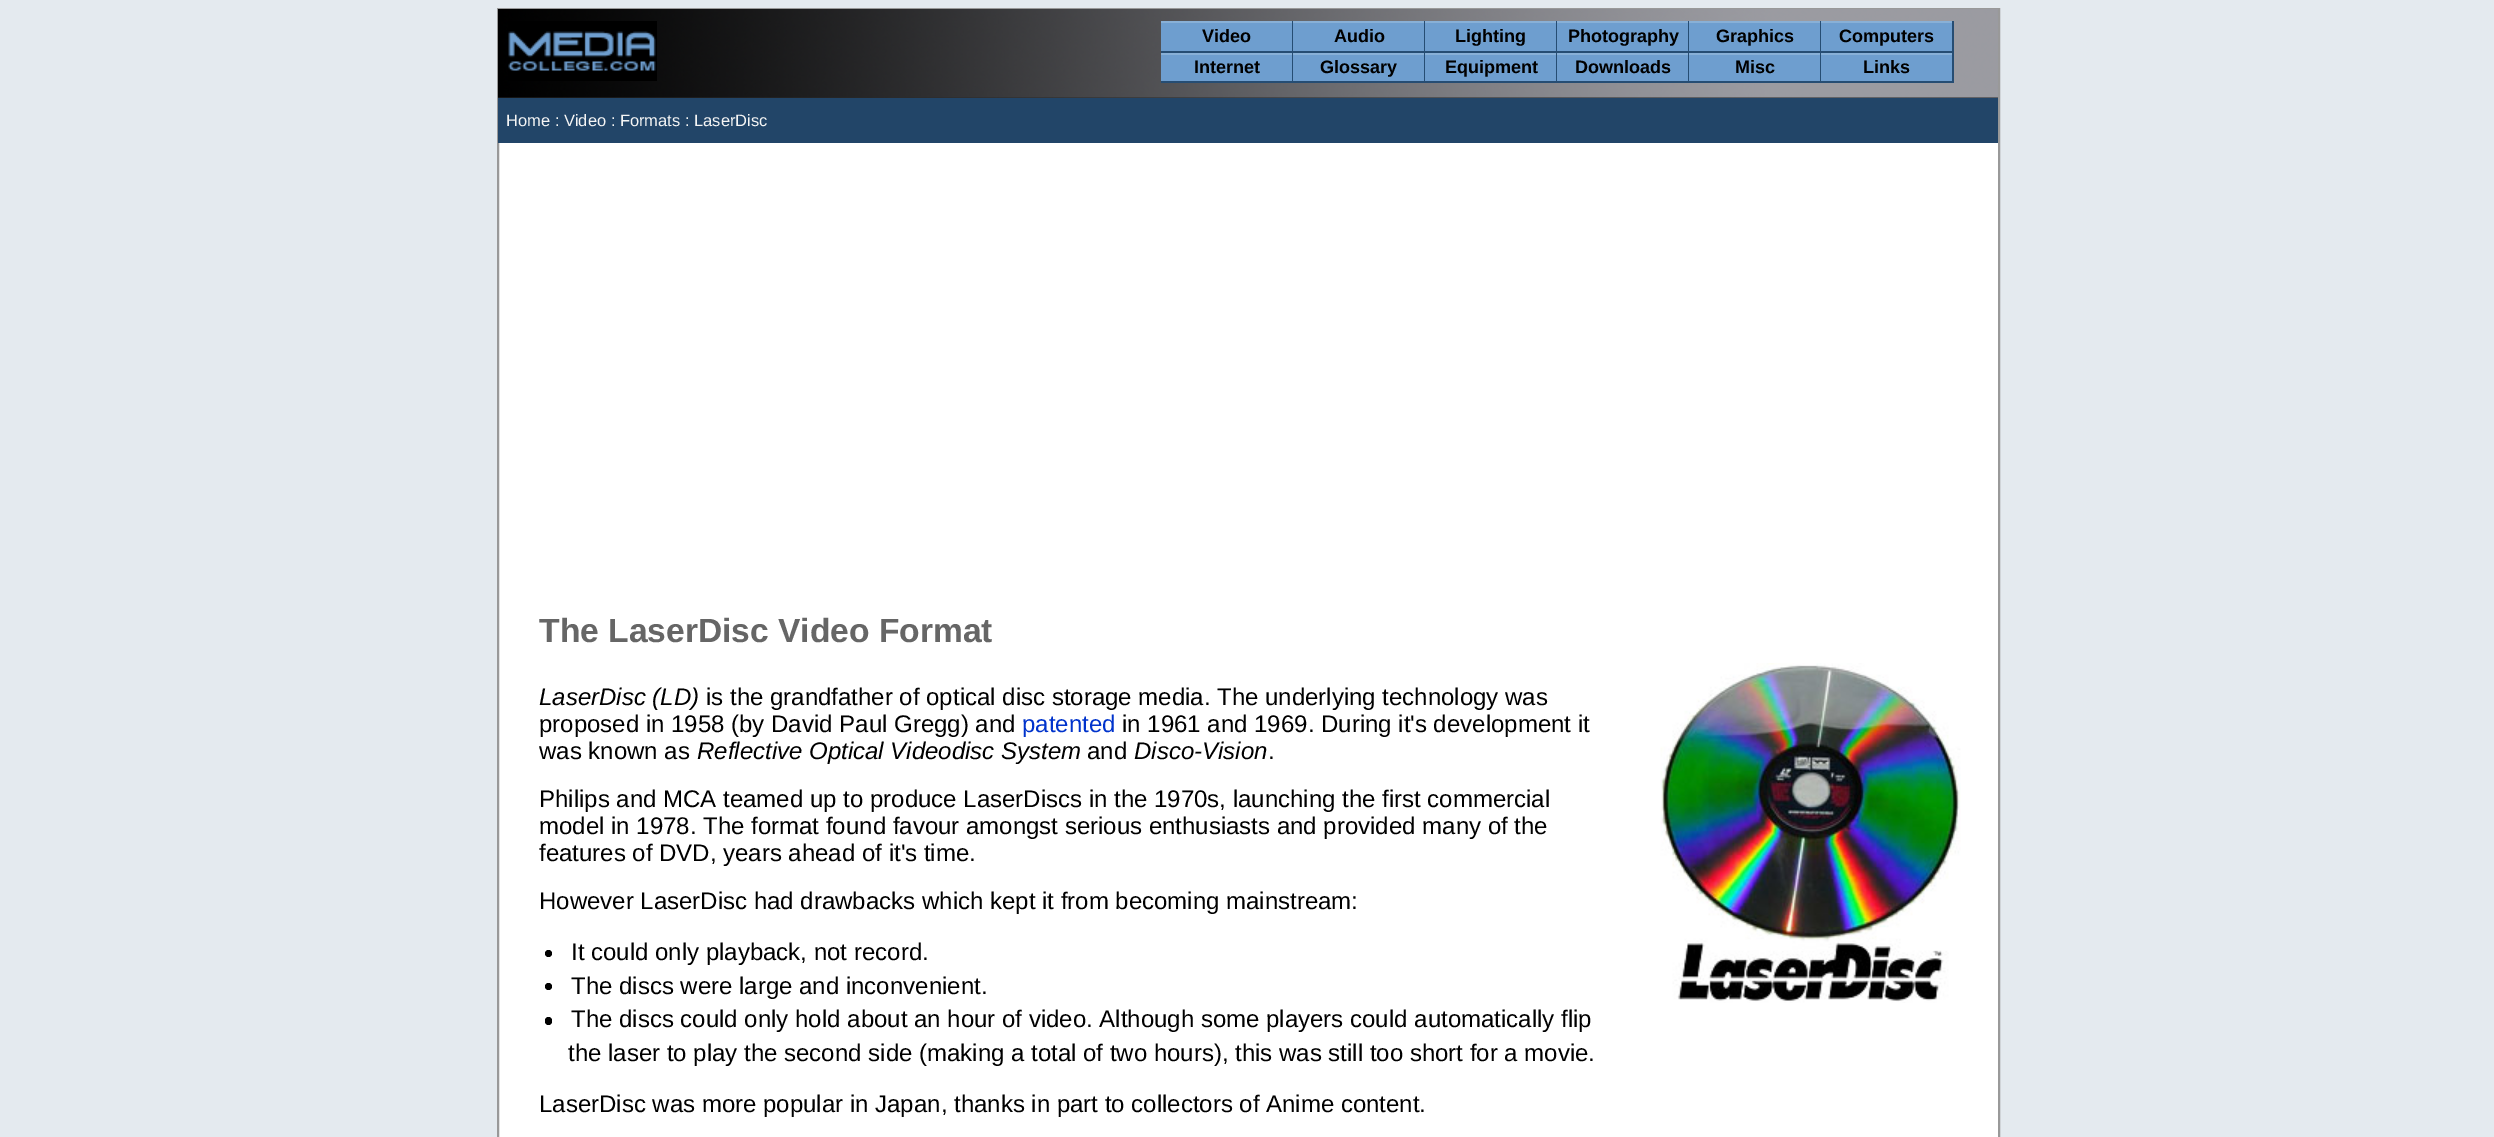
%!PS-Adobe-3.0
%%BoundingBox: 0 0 2494 1137
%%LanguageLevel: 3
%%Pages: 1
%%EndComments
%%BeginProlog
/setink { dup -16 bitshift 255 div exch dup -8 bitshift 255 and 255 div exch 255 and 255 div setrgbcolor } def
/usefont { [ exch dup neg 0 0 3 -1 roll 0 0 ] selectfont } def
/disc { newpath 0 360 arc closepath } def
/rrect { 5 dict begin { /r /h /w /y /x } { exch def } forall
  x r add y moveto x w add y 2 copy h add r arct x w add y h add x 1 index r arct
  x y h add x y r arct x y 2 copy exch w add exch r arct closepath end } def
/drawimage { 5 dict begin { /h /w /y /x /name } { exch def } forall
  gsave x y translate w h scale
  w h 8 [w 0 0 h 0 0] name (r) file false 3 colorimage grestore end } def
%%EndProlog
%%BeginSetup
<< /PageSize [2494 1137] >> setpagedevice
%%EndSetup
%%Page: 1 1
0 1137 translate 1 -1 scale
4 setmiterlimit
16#E4EAEF setink
0 0 2494 1137 rectfill
16#FFFFFF setink
499 143 1499 994 rectfill
16#999999 setink
2 setlinewidth
498 9 1501 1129 rectstroke
16#292929 setink
498 97 1500 1 rectfill
(img1.raw) 498 9 1500 89 drawimage
(img2.raw) 508 21 149 60 drawimage
[
    [1161 23 131 28 16#6E9ECF]
    [1161 21 792 2 16#88B0D7]
    [1292 21 1 32 16#264D73]
    [1161 51 132 2 16#264D73]
] { aload pop setink rectfill } forall
/LiberationSans-Bold 18 usefont
16#000000 setink
1202 42 moveto (Video) show
[
    [1293 23 131 28 16#6E9ECF]
    [1424 21 1 32 16#264D73]
    [1293 51 132 2 16#264D73]
] { aload pop setink rectfill } forall
16#000000 setink
1334 42 moveto (Audio) show
[
    [1425 23 131 28 16#6E9ECF]
    [1556 21 1 32 16#264D73]
    [1425 51 132 2 16#264D73]
] { aload pop setink rectfill } forall
16#000000 setink
1455 42 moveto (Lighting) show
[
    [1557 23 131 28 16#6E9ECF]
    [1688 21 1 32 16#264D73]
    [1557 51 132 2 16#264D73]
] { aload pop setink rectfill } forall
16#000000 setink
1568 42 moveto (Photography) show
[
    [1689 23 131 28 16#6E9ECF]
    [1820 21 1 32 16#264D73]
    [1689 51 132 2 16#264D73]
] { aload pop setink rectfill } forall
16#000000 setink
1716 42 moveto (Graphics) show
[
    [1821 23 131 28 16#6E9ECF]
    [1952 21 2 32 16#264D73]
    [1821 51 132 2 16#264D73]
] { aload pop setink rectfill } forall
16#000000 setink
1839 42 moveto (Computers) show
[
    [1161 55 131 26 16#6E9ECF]
    [1161 53 792 2 16#88B0D7]
    [1292 53 1 30 16#264D73]
    [1161 81 132 2 16#264D73]
] { aload pop setink rectfill } forall
16#000000 setink
1194 73 moveto (Internet) show
[
    [1293 55 131 26 16#6E9ECF]
    [1424 53 1 30 16#264D73]
    [1293 81 132 2 16#264D73]
] { aload pop setink rectfill } forall
16#000000 setink
1320 73 moveto (Glossary) show
[
    [1425 55 131 26 16#6E9ECF]
    [1556 53 1 30 16#264D73]
    [1425 81 132 2 16#264D73]
] { aload pop setink rectfill } forall
16#000000 setink
1445 73 moveto (Equipment) show
[
    [1557 55 131 26 16#6E9ECF]
    [1688 53 1 30 16#264D73]
    [1557 81 132 2 16#264D73]
] { aload pop setink rectfill } forall
16#000000 setink
1575 73 moveto (Downloads) show
[
    [1689 55 131 26 16#6E9ECF]
    [1820 53 1 30 16#264D73]
    [1689 81 132 2 16#264D73]
] { aload pop setink rectfill } forall
16#000000 setink
1735 73 moveto (Misc) show
[
    [1821 55 131 26 16#6E9ECF]
    [1952 53 2 30 16#264D73]
    [1821 81 132 2 16#264D73]
] { aload pop setink rectfill } forall
16#000000 setink
1863 73 moveto (Links) show
16#224568 setink
498 98 1500 45 rectfill
/LiberationSans-Regular 16.5 usefont
16#F5F5F5 setink
506 126 moveto (Home : Video : Formats : LaserDisc) show
/LiberationSans-Bold 33.6 usefont
16#666666 setink
539 642 moveto (The LaserDisc Video Format) show
/LiberationSans-Italic 24 usefont
16#000000 setink
539 705 moveto (LaserDisc \(LD\)) show
/LiberationSans-Regular 24 usefont
706 705 moveto (is the grandfather of optical disc storage media. The underlying technology was) show
539 732 moveto (proposed in 1958 \(by David Paul Gregg\) and) show
16#0033CC setink
1022 732 moveto (patented) show
16#000000 setink
1122 732 moveto (in 1961 and 1969. During it's development it) show
539 759 moveto (was known as) show
/LiberationSans-Italic 24 usefont
697 759 moveto (Reflective Optical Videodisc System) show
/LiberationSans-Regular 24 usefont
1087 759 moveto (and) show
/LiberationSans-Italic 24 usefont
1134 759 moveto (Disco-Vision) show
/LiberationSans-Regular 24 usefont
1268 759 moveto (.) show
(img3.raw) 1660 663 301 340 drawimage
[
    [(Philips and MCA teamed up to produce LaserDiscs in the 1970s, launching the first commercial) 539 807]
    [(model in 1978. The format found favour amongst serious enthusiasts and provided many of the) 539 834]
    [(features of DVD, years ahead of it's time.) 539 861]
    [(However LaserDisc had drawbacks which kept it from becoming mainstream:) 539 909]
] { aload pop moveto show } forall
548.5 953.5 3.5 disc fill
571 960 moveto (It could only playback, not record.) show
548.5 986.5 3.5 disc fill
571 994 moveto (The discs were large and inconvenient.) show
545 1017 7 8 3.5 rrect fill
[
    [(The discs could only hold about an hour of video. Although some players could automatically flip) 571 1027]
    [(the laser to play the second side \(making a total of two hours\), this was still too short for a movie.) 568 1061]
    [(LaserDisc was more popular in Japan, thanks in part to collectors of Anime content.) 539 1112]
] { aload pop moveto show } forall
showpage
%%EOF
